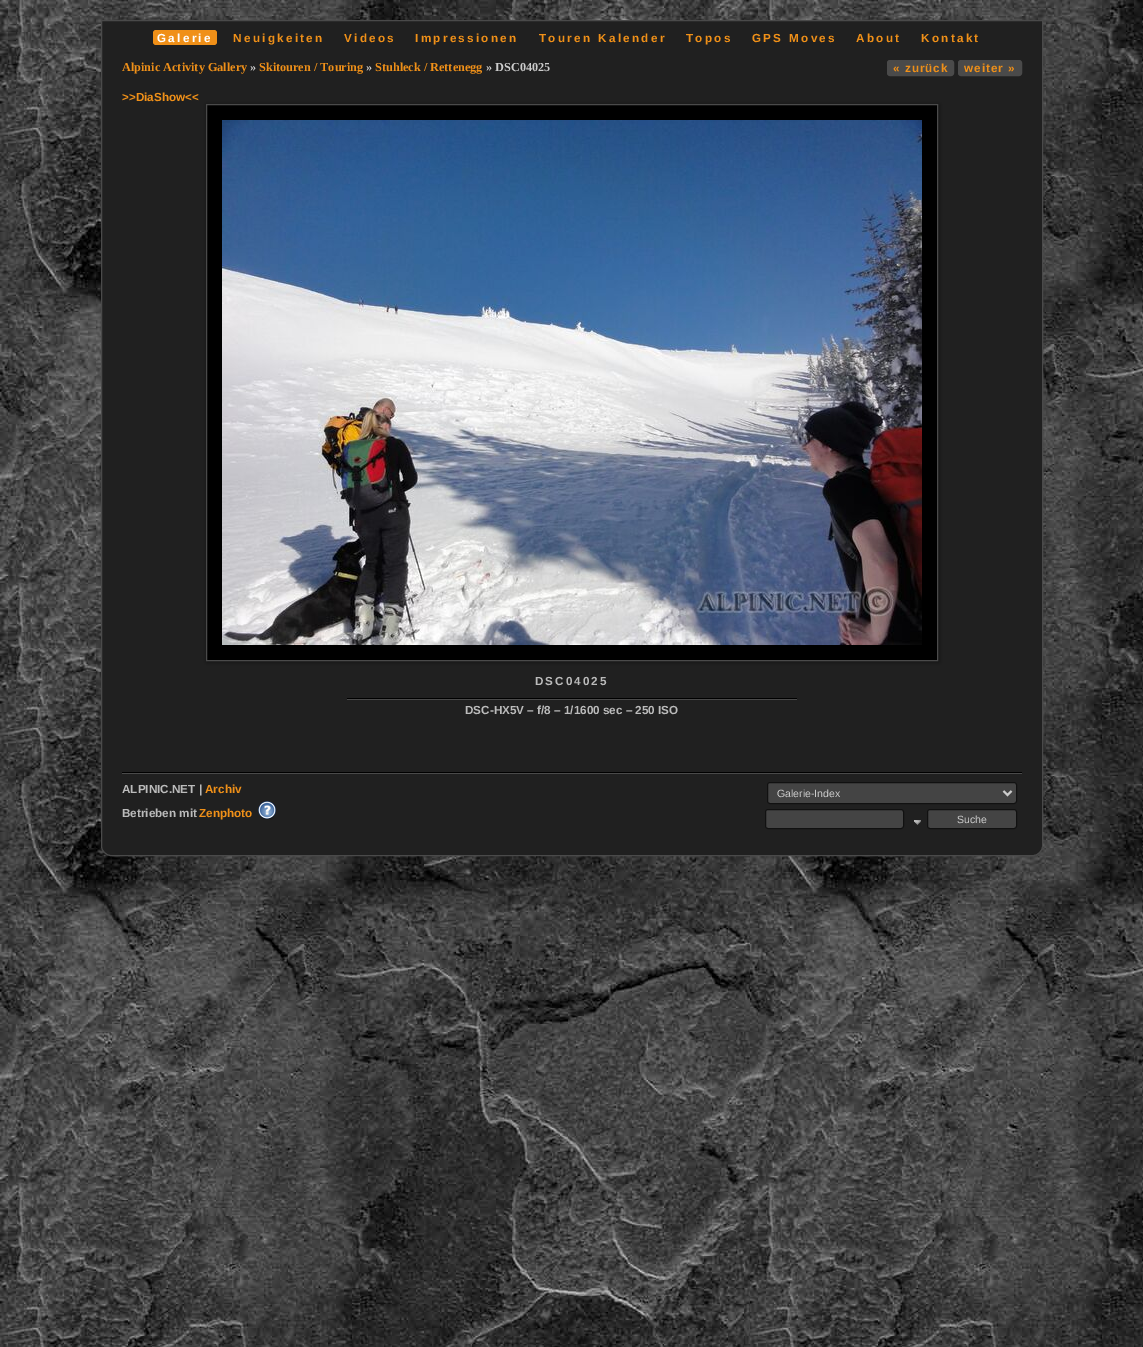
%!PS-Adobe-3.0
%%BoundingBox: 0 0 1143 1347
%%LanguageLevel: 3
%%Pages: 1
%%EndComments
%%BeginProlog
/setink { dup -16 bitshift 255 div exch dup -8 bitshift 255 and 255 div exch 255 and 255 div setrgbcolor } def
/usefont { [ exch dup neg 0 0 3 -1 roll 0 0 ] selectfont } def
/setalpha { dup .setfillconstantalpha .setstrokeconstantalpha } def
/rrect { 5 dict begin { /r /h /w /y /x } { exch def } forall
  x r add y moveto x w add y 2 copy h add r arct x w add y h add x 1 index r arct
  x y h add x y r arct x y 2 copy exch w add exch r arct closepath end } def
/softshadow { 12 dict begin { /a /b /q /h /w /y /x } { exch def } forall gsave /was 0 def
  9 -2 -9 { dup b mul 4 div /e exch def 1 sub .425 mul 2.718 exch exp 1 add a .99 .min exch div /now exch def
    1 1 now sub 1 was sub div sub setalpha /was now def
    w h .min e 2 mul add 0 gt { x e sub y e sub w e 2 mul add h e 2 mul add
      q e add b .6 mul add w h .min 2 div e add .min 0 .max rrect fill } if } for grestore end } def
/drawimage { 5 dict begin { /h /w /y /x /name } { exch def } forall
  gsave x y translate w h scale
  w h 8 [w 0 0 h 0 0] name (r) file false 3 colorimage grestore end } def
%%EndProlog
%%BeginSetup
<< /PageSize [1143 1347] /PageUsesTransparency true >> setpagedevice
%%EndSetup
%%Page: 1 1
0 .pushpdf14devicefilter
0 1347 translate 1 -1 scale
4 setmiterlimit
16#FFFFFF setink
0 0 1143 1347 rectfill
(img1.raw) 0 0 1143 1347 drawimage
16#202020 setink
101.5 20.5 moveto 1042.5 20.5 lineto 1042.5 846 lineto 1042.5 851 1038 855.5 1033 855.5 curveto 111 855.5 lineto 106 855.5 101.5 851 101.5 846 curveto closepath gsave fill grestore
16#4A4A4A setink
stroke
16#F09018 setink
153 30 64 15 3 rrect fill
/LiberationSans-Bold 11.7 usefont
16#FFFFFF setink
157 42 moveto 2.3 0 (Galerie) ashow
16#F09018 setink
233 42 moveto 2.3 0 (Neuigkeiten) ashow
344 42 moveto 2.3 0 (Videos) ashow
415 42 moveto 2.3 0 (Impressionen) ashow
539 42 moveto 2.3 0 (Touren Kalender) ashow
686 42 moveto 2.3 0 (Topos) ashow
752 42 moveto 2.3 0 (GPS Moves) ashow
856 42 moveto 2.3 0 (About) ashow
921 42 moveto 2.3 0 (Kontakt) ashow
/LiberationSerif-Bold 12.25 usefont
122 71 moveto (Alpinic Activity Gallery) show
16#CCCCCC setink
250 71 moveto (») show
16#F09018 setink
259 71 moveto (Skitouren / Touring) show
16#CCCCCC setink
366 71 moveto (») show
16#F09018 setink
375 71 moveto (Stuhleck / Rettenegg) show
16#CCCCCC setink
486 71 moveto (» DSC04025) show
16#4A4A4A setink
887.5 60.5 66 15 2.5 rrect gsave fill grestore
stroke
/LiberationSans-Bold 11.7 usefont
16#F09018 setink
893 72 moveto 1 0 (« zurück) ashow
16#4A4A4A setink
958.5 60.5 63 15 2.5 rrect gsave fill grestore
stroke
16#F09018 setink
964 72 moveto 1 0 (weiter ») ashow
122 101 moveto (>>DiaShow<<) show
16#111111 setink
207 105 732 557 0 2.5 1 softshadow
16#000000 setink
206.5 104.5 moveto 937.5 104.5 lineto 937.5 660.5 lineto 206.5 660.5 lineto closepath gsave fill grestore
16#4A4A4A setink
stroke
(img2.raw) 222 120 700 525 drawimage
16#BBBBBB setink
535 685 moveto 2 0 (DSC04025) ashow
(img3.raw) 347 698 450 2 drawimage
465 714 moveto (DSC-HX5V – f/8 – 1/1600 sec – 250 ISO) show
(img4.raw) 122 772 900 2 drawimage
122 793 moveto (ALPINIC.NET |) show
16#F09018 setink
205 793 moveto (Archiv) show
16#BBBBBB setink
122 817 moveto (Betrieben mit) show
16#F09018 setink
199 817 moveto (Zenphoto) show
(img5.raw) 258 801 18 19 drawimage
16#444444 setink
767.5 782.5 249 21 2.5 rrect gsave fill grestore
16#111111 setink
stroke
16#CCCCCC setink
2 setlinewidth
1003.5 791 moveto 1007.5 795 lineto 1011.5 791 lineto stroke
/LiberationSans-Regular 10.5 usefont
777 797 moveto (Galerie-Index) show
16#444444 setink
765.5 809.5 138 19 2.5 rrect gsave fill grestore
16#111111 setink
1 setlinewidth
stroke
(img6.raw) 914 820 7 5 drawimage
16#444444 setink
927.5 809.5 89 19 2.5 rrect gsave fill grestore
16#111111 setink
stroke
16#CCCCCC setink
957 823 moveto (Suche) show
.poppdf14devicefilter showpage
%%EOF
